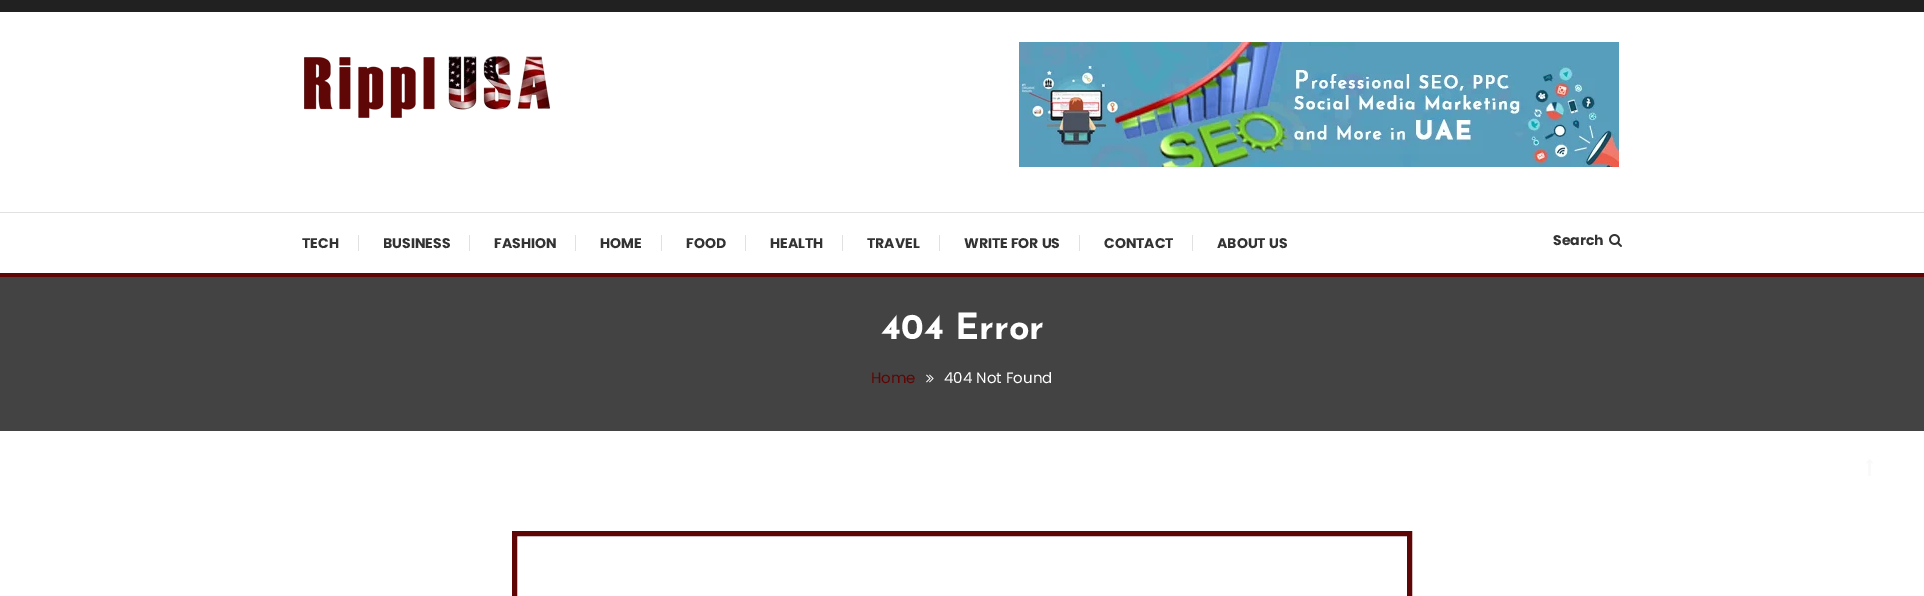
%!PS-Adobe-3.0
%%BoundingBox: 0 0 1924 596
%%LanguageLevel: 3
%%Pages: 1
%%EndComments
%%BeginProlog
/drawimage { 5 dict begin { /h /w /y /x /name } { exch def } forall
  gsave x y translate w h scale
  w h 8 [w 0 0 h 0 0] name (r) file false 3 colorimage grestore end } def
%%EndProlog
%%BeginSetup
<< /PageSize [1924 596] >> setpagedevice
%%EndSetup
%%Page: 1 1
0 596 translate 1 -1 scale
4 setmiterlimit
1 setgray
0 0 1924 596 rectfill
0.129 setgray
0 0 1924 12 rectfill
(images/1.raw) 304 56 246 62 drawimage
(images/2.raw) 1019 42 600 125 drawimage
0.882 setgray
0 212 1924 1 rectfill
358 235 1 16 rectfill
469 235 1 16 rectfill
575 235 1 16 rectfill
661 235 1 16 rectfill
745 235 1 16 rectfill
842 235 1 16 rectfill
939 235 1 16 rectfill
1079 235 1 16 rectfill
1192 235 1 16 rectfill
(images/3.raw) 1609 234 13 13 drawimage
0.263 setgray
0 277 1924 154 rectfill
0.369 0.024 0.024 setrgbcolor
0 273 1924 4 rectfill
(images/4.raw) 926 374 8 9 drawimage
(images/5.raw) 1866 459 7 17 drawimage
5 setlinewidth
514.5 533.5 895 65 rectstroke
/Poppins-Bold [14 0 0 -14 0 0] selectfont
0.2 setgray
302 248 moveto (TECH) show
383 248 moveto (BUSINESS) show
494 248 moveto (FASHION) show
600 248 moveto (HOME) show
686 248 moveto (FOOD) show
770 248 moveto (HEALTH) show
867 248 moveto (TRAVEL) show
964 248 moveto (WRITE FOR US) show
1104 248 moveto (CONTACT) show
1217 248 moveto (ABOUT US) show
1553 245 moveto (Search) show
/JosefinSans-Bold [36 0 0 -36 0 0] selectfont
1 setgray
881 339 moveto (404 Error) show
/Poppins-Regular [15 0 0 -15 0 0] selectfont
0.369 0.024 0.024 setrgbcolor
871 383 moveto (Home) show
1 setgray
944 383 moveto (404 Not Found) show
showpage
%%EOF
